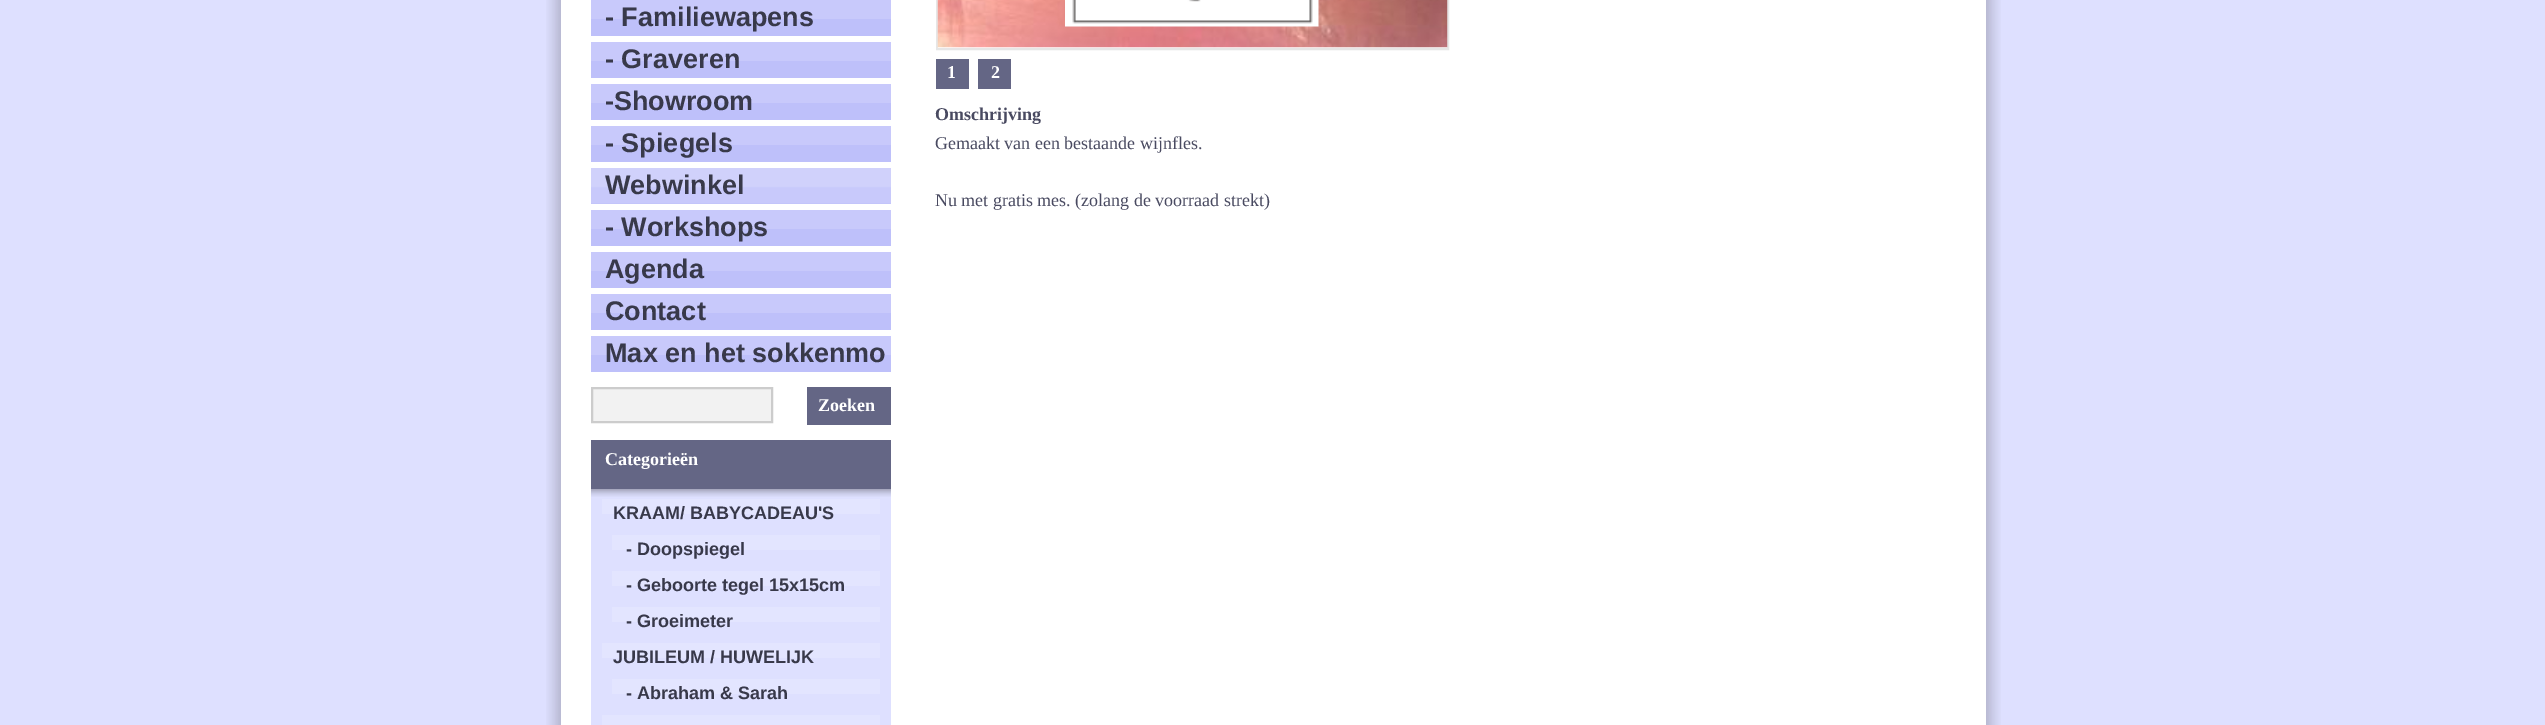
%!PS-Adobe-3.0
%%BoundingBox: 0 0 2545 725
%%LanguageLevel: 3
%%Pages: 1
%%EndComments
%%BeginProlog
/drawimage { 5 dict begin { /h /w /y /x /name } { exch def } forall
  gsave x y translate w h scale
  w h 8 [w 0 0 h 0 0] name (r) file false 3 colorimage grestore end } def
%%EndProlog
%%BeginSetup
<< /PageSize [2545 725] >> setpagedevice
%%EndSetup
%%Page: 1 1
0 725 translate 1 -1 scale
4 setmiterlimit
0.871 0.878 1 setrgbcolor
0 0 2545 725 rectfill
(images/1.raw) 546 0 1455 725 drawimage
1 setgray
561 0 1425 725 rectfill
0.745 0.753 0.98 setrgbcolor
591 19 300 17 rectfill
0.784 0.788 0.984 setrgbcolor
591 0 300 19 rectfill
0.745 0.753 0.98 setrgbcolor
591 61 300 17 rectfill
0.784 0.788 0.984 setrgbcolor
591 42 300 19 rectfill
0.745 0.753 0.98 setrgbcolor
591 103 300 17 rectfill
0.784 0.788 0.984 setrgbcolor
591 84 300 19 rectfill
0.745 0.753 0.98 setrgbcolor
591 145 300 17 rectfill
0.784 0.788 0.984 setrgbcolor
591 126 300 19 rectfill
0.745 0.753 0.98 setrgbcolor
591 168 300 36 rectfill
(images/2.raw) 591 168 300 36 drawimage
591 229 300 17 rectfill
0.784 0.788 0.984 setrgbcolor
591 210 300 19 rectfill
0.745 0.753 0.98 setrgbcolor
591 271 300 17 rectfill
0.784 0.788 0.984 setrgbcolor
591 252 300 19 rectfill
0.745 0.753 0.98 setrgbcolor
591 313 300 17 rectfill
0.784 0.788 0.984 setrgbcolor
591 294 300 19 rectfill
0.745 0.753 0.98 setrgbcolor
591 355 300 17 rectfill
0.784 0.788 0.984 setrgbcolor
591 336 300 19 rectfill
0.949 setgray
newpath 592 388 moveto 772 388 lineto 772 422 lineto 592 422 lineto closepath gsave fill grestore
0.8 setgray
2 setlinewidth
stroke
0.392 0.4 0.522 setrgbcolor
807 387 84 38 rectfill
0.871 0.878 1 setrgbcolor
591 489 300 236 rectfill
(images/3.raw) 591 489 300 8 drawimage
0.392 0.4 0.522 setrgbcolor
591 440 300 49 rectfill
0.89 0.898 1 setrgbcolor
602 499 278 15 rectfill
612 535 268 15 rectfill
612 571 268 15 rectfill
612 607 268 15 rectfill
602 643 278 15 rectfill
612 679 268 15 rectfill
602 715 278 10 rectfill
0.902 setgray
937 -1 511 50 rectstroke
(images/4.raw) 937 0 511 48 drawimage
(images/5.raw) 1065 0 254 27 drawimage
0.392 0.4 0.522 setrgbcolor
936 59 33 30 rectfill
978 59 33 30 rectfill
/LiberationSans-Bold [27 0 0 -27 0 0] selectfont
0.22 0.224 0.29 setrgbcolor
605 26 moveto (- Familiewapens) show
605 68 moveto (- Graveren) show
605 110 moveto (-Showroom) show
605 152 moveto (- Spiegels) show
605 194 moveto (Webwinkel) show
605 236 moveto (- Workshops) show
605 278 moveto (Agenda) show
605 320 moveto (Contact) show
605 362 moveto (Max en het sokkenmo) show
/LiberationSerif-Bold [18 0 0 -18 0 0] selectfont
1 setgray
818 411 moveto (Zoeken) show
605 465 moveto (Categorieën) show
/LiberationSans-Bold [18 0 0 -18 0 0] selectfont
0.22 0.224 0.29 setrgbcolor
613 519 moveto (KRAAM/ BABYCADEAU'S) show
626 555 moveto (- Doopspiegel) show
626 591 moveto (- Geboorte tegel 15x15cm) show
626 627 moveto (- Groeimeter) show
613 663 moveto (JUBILEUM / HUWELIJK) show
626 699 moveto (- Abraham & Sarah) show
/LiberationSerif-Bold [18 0 0 -18 0 0] selectfont
1 setgray
947 78 moveto (1) show
991 78 moveto (2) show
0.286 0.29 0.38 setrgbcolor
935 120 moveto (Omschrijving) show
/LiberationSerif-Regular [18 0 0 -18 0 0] selectfont
935 149 moveto (Gemaakt van een bestaande wijnfles.) show
935 206 moveto (Nu met gratis mes. \(zolang de voorraad strekt\)) show
showpage
%%EOF
